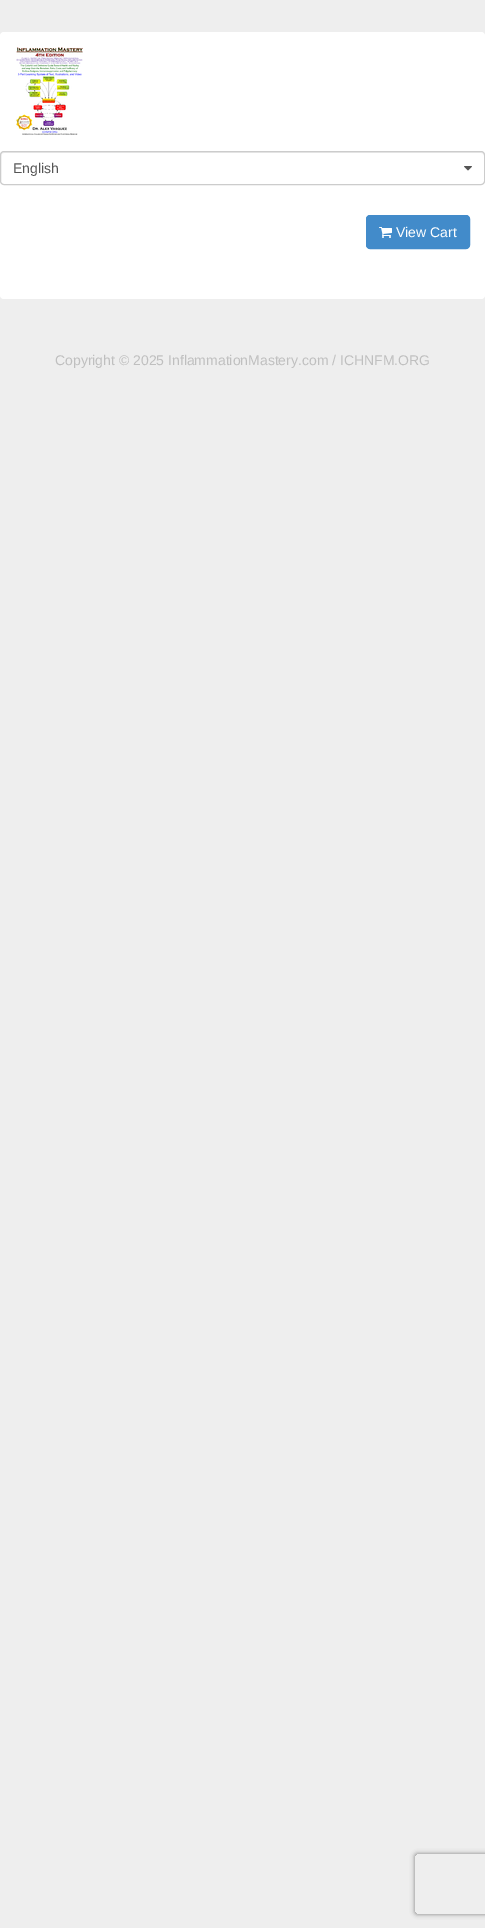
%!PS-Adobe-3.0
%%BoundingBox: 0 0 485 1928
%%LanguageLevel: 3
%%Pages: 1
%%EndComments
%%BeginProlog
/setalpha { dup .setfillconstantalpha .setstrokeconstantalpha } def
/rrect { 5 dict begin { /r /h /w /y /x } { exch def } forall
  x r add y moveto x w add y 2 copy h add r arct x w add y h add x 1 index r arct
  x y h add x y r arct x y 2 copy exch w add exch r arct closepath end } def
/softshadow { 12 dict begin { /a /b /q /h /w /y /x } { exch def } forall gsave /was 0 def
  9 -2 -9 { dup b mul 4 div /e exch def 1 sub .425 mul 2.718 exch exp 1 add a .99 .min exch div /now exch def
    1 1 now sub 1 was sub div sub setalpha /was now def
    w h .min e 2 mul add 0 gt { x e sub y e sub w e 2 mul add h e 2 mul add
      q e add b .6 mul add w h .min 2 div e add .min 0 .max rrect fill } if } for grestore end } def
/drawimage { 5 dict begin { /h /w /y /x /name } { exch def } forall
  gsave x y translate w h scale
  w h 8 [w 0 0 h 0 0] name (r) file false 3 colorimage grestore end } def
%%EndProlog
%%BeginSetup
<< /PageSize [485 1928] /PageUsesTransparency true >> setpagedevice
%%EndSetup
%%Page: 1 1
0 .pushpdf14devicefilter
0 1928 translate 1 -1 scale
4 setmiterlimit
0.933 setgray
0 0 485 1928 rectfill
1 setgray
0 32 485 267 4 rrect fill
(images/1.raw) 16 47 67 88 drawimage
0.925 setgray
newpath 4 153 moveto 481 153 lineto 483 153 484 154 484 156 curveto 484 155 lineto 484 153 483 152 481 152 curveto 4 152 lineto 2 152 1 153 1 155 curveto 1 156 lineto 1 154 2 153 4 153 curveto closepath fill
0.8 setgray
0.5 151.5 484 33 3.5 rrect stroke
(images/2.raw) 464 166 8 5 drawimage
0.259 0.545 0.792 setrgbcolor
366.5 215.5 103 33 3.5 rrect gsave fill grestore
stroke
(images/3.raw) 379 227 13 11 drawimage
gsave
newpath 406 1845 moveto 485 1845 lineto 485 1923 lineto 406 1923 lineto closepath 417 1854 moveto 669 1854 lineto 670 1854 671 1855 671 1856 curveto 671 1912 lineto 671 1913 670 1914 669 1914 curveto 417 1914 lineto 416 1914 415 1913 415 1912 curveto 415 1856 lineto 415 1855 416 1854 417 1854 curveto closepath eoclip newpath
0.502 setgray
415 1854 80 60 2 2.5 1 softshadow
grestore
/LiberationSans-Regular [14 0 0 -14 0 0] selectfont
0.333 setgray
13 173 moveto (English) show
1 setgray
396 237 moveto (View Cart) show
0.749 setgray
55 365 moveto (Copyright © 2025 InflammationMastery.com / ICHNFM.ORG) show
.poppdf14devicefilter showpage
%%EOF
